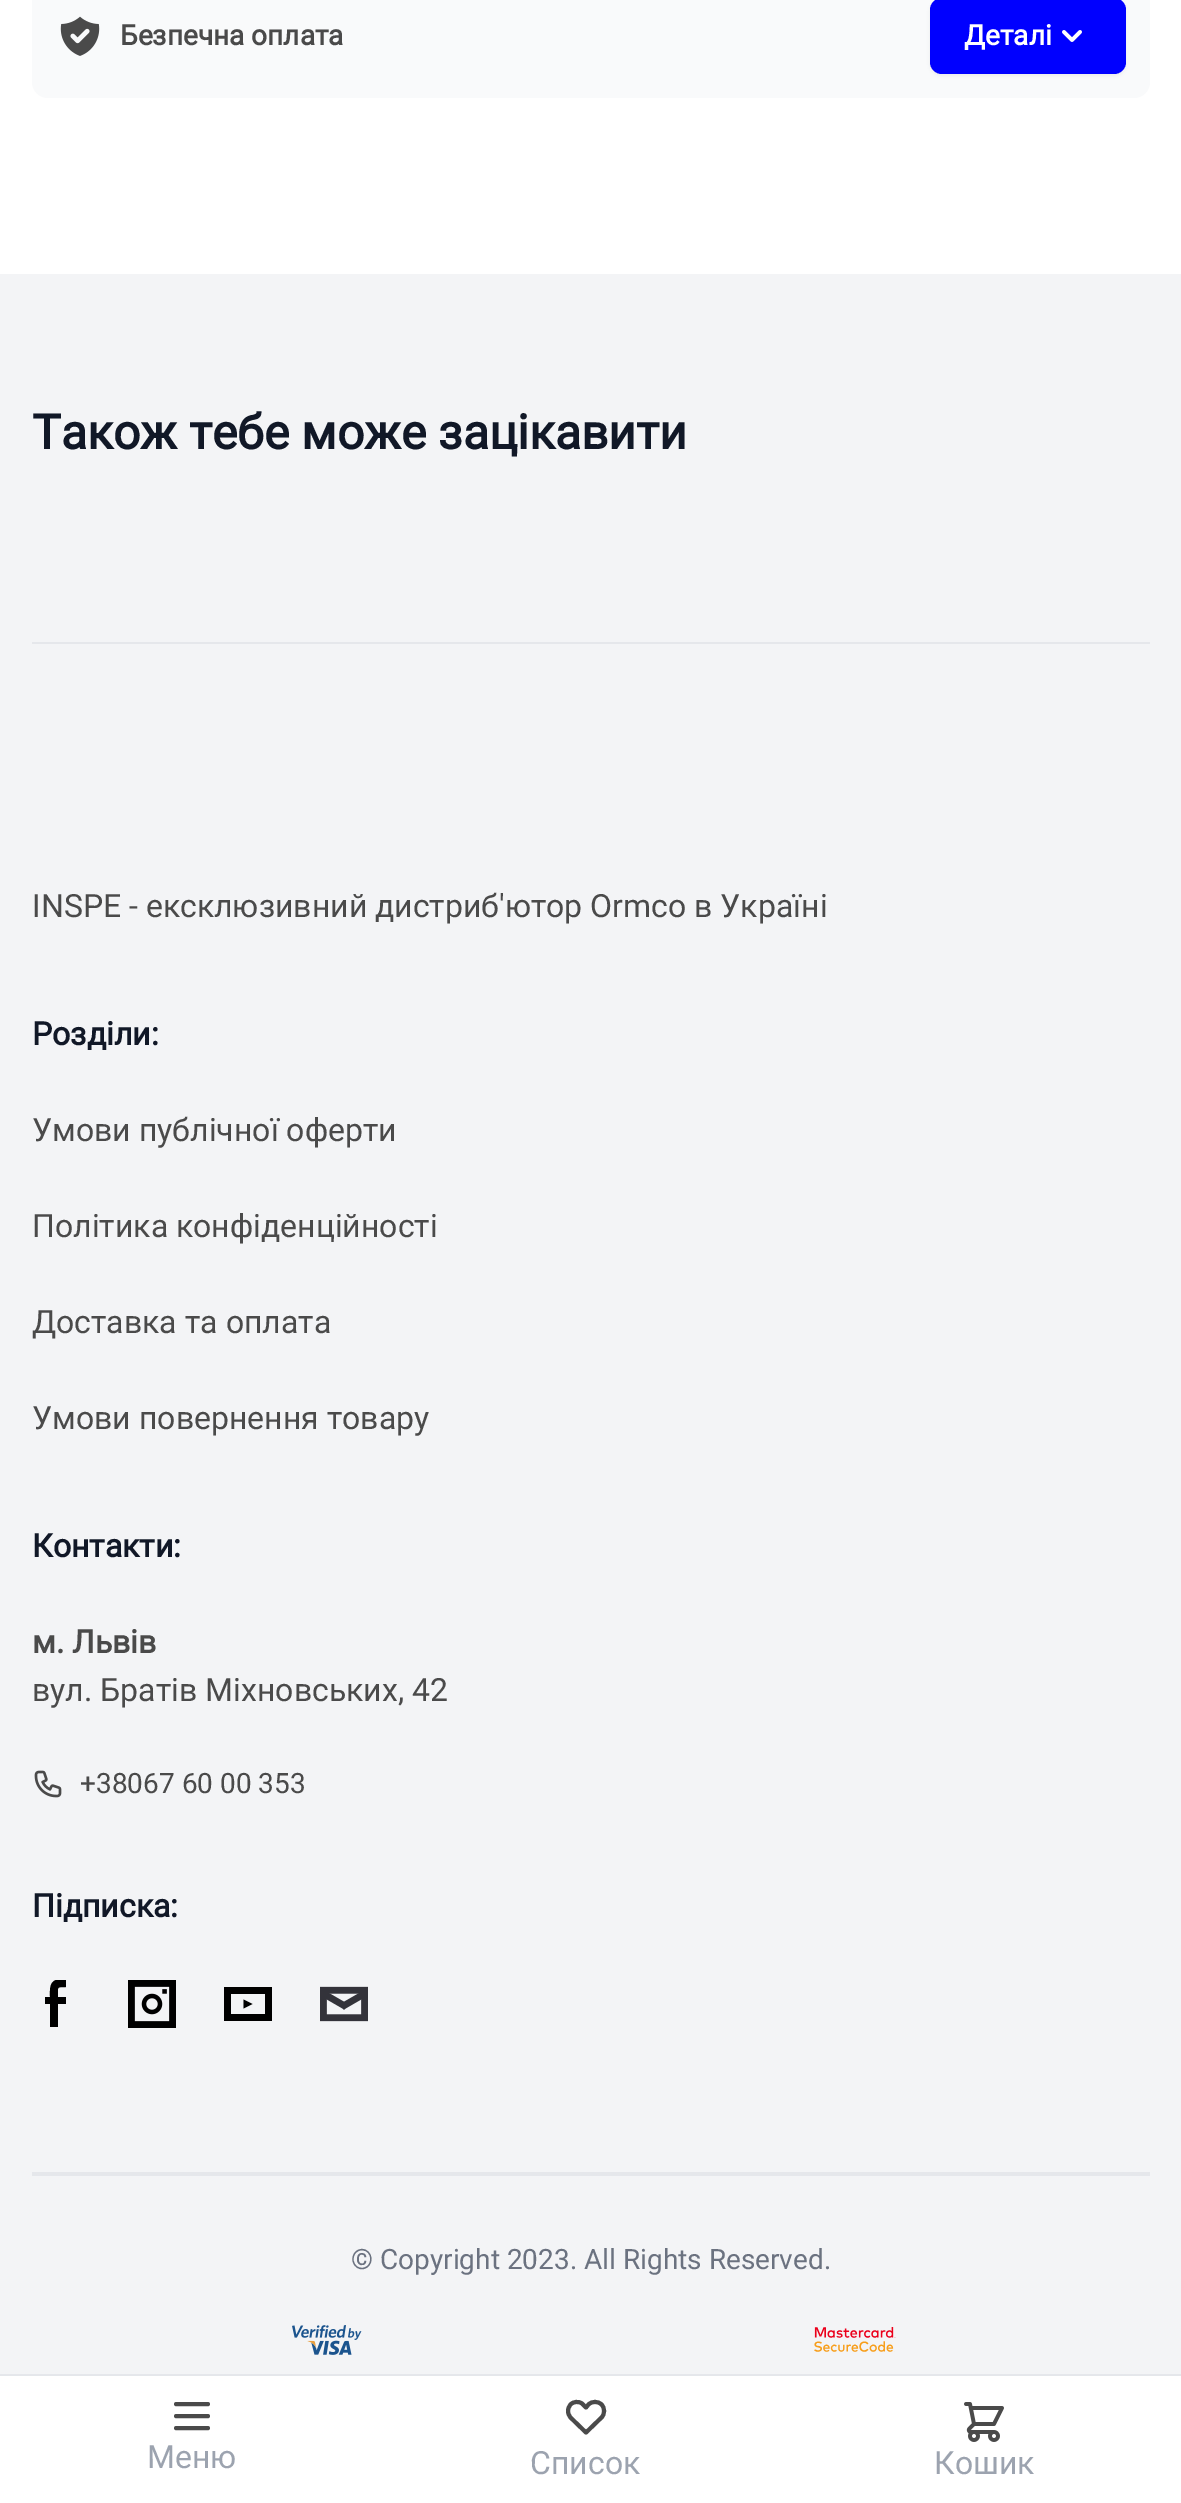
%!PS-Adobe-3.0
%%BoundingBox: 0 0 1181 2503
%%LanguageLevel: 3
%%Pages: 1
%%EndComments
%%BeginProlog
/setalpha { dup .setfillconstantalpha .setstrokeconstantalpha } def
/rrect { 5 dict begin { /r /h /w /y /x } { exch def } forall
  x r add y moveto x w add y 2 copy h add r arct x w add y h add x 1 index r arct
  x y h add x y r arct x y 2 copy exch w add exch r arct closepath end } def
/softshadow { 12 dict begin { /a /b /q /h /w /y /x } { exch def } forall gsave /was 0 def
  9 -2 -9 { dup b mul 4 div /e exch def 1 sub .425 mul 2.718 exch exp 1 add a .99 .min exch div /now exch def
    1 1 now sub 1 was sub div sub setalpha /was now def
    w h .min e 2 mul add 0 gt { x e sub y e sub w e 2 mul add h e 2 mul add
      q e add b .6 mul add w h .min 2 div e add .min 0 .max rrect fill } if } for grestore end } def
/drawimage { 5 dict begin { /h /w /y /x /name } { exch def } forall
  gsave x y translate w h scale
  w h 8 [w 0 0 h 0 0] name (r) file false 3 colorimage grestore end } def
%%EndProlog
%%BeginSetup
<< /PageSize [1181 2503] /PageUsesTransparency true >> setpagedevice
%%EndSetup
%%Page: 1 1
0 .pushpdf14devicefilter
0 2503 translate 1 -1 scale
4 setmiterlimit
1 setgray
0 0 1181 2503 rectfill
0.976 0.98 0.984 setrgbcolor
32 -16 1118 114 16 rrect fill
(images/1.raw) 60 16 40 40 drawimage
0 setgray
930 0 196 76 12 2 0.05 softshadow
0 0 1 setrgbcolor
930 -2 196 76 12 rrect fill
(images/2.raw) 1062 30 20 12 drawimage
0.953 0.957 0.965 setrgbcolor
0 274 1181 2100 rectfill
0.898 0.906 0.922 setrgbcolor
32 642 1118 2 rectfill
32 2172 1118 4 rectfill
(images/3.raw) 34 1770 28 28 drawimage
0 setgray
newpath 50 2027 moveto 58 2027 lineto 58 2004 lineto 66 2004 lineto 66 1997 lineto 58 1997 lineto 58 1987 56 1987 66 1987 curveto 66 1980 lineto 56 1980 lineto 49 1982 50 1991 50 1997 curveto 45 1997 lineto 45 2004 lineto 50 2004 lineto closepath fill
(images/4.raw) 128 1980 48 48 drawimage
newpath 243.5 2008.5 moveto 252.5 2004 lineto 243.5 1999.5 lineto closepath fill
newpath 224 1987 moveto 272 1987 lineto 272 2021 lineto 224 2021 lineto closepath 231 1994 moveto 265 1994 lineto 265 2014 lineto 231 2014 lineto closepath eofill
(images/5.raw) 320 1986 48 36 drawimage
(images/6.raw) 292 2325 70 30 drawimage
(images/7.raw) 814 2327 82 25 drawimage
0.898 0.906 0.922 setrgbcolor
0 2374 1181 2 rectfill
0.29 setgray
4 setlinewidth
1 setlinecap
1 setlinejoin
newpath 176 2404 moveto 208 2404 lineto 176 2416 moveto 208 2416 lineto 176 2428 moveto 208 2428 lineto stroke
newpath 570.5 2404.5 moveto 569 2406.5 568 2408.5 568 2411 curveto 568 2413.5 569 2415.5 570.5 2417.5 curveto 586 2432.5 lineto 601.5 2417.5 lineto 605 2414 605 2408 601.5 2404.5 curveto 598 2401 592 2401 588.5 2404.5 curveto 586 2407.5 lineto 582 2403.5 lineto 578.5 2401 573.5 2401.5 570.5 2404.5 curveto closepath stroke
(images/8.raw) 964 2402 40 40 drawimage
/Roboto-Bold [28 0 0 -28 0 0] selectfont
120 45 moveto (Безпечна оплата) show
1 setgray
964 45 moveto (Деталі) show
/Roboto-Bold [48 0 0 -48 0 0] selectfont
0.067 0.094 0.153 setrgbcolor
32 449 moveto (Також тебе може зацікавити) show
/Roboto-Regular [32 0 0 -32 0 0] selectfont
0.29 setgray
32 917 moveto (INSPE - ексклюзивний дистриб'ютор Ormco в Україні) show
/Roboto-Bold [32 0 0 -32 0 0] selectfont
0.067 0.094 0.153 setrgbcolor
32 1045 moveto (Розділи:) show
/Roboto-Regular [32 0 0 -32 0 0] selectfont
0.29 setgray
32 1141 moveto (Умови публічної оферти) show
32 1237 moveto (Політика конфіденційності) show
32 1333 moveto (Доставка та оплата) show
32 1429 moveto (Умови повернення товару) show
/Roboto-Bold [32 0 0 -32 0 0] selectfont
0.067 0.094 0.153 setrgbcolor
32 1557 moveto (Контакти:) show
0.29 setgray
32 1653 moveto (м. Львів) show
/Roboto-Regular [32 0 0 -32 0 0] selectfont
32 1701 moveto (вул. Братів Міхновських, 42) show
/Roboto-Regular [28 0 0 -28 0 0] selectfont
80 1793 moveto (+38067 60 00 353) show
/Roboto-Bold [32 0 0 -32 0 0] selectfont
0.067 0.094 0.153 setrgbcolor
32 1917 moveto (Підписка:) show
/Roboto-Regular [28 0 0 -28 0 0] selectfont
0.42 0.447 0.502 setrgbcolor
351 2269 moveto (© Copyright 2023. All Rights Reserved.) show
/Roboto-Regular [32 0 0 -32 0 0] selectfont
0.612 0.639 0.686 setrgbcolor
147 2468 moveto (Меню) show
530 2474 moveto (Список) show
934 2474 moveto (Кошик) show
.poppdf14devicefilter showpage
%%EOF
